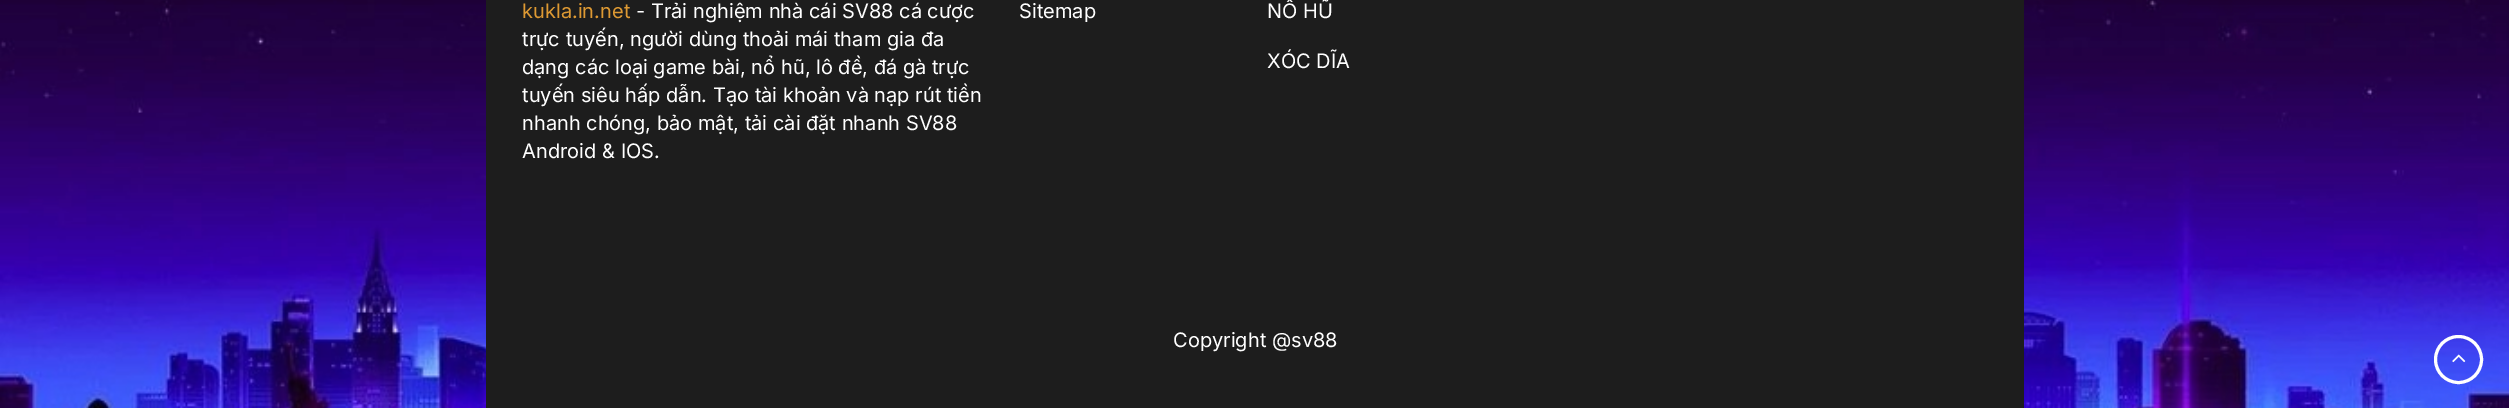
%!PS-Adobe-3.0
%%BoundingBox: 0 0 2509 408
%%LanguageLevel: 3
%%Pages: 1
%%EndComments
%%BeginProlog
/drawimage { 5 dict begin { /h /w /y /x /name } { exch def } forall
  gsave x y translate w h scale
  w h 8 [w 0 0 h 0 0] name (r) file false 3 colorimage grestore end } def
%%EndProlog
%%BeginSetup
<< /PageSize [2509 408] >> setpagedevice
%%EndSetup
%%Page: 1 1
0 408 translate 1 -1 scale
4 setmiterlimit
1 setgray
0 0 2509 408 rectfill
(images/1.raw) 0 0 2509 408 drawimage
0.114 setgray
486 0 1538 408 rectfill
1 setgray
3 setlinewidth
newpath 2458.5 359.5 23 0 360 arc closepath stroke
(images/2.raw) 2452 354 14 9 drawimage
/Inter-Regular [20 0 0 -20 0 0] selectfont
0.867 0.6 0.2 setrgbcolor
522 18 moveto (kukla.in.net) show
1 setgray
636 18 moveto (- Trải nghiệm nhà cái SV88 cá cược) show
522 46 moveto (trực tuyến, người dùng thoải mái tham gia đa) show
522 74 moveto (dạng các loại game bài, nổ hũ, lô đề, đá gà trực) show
522 102 moveto (tuyến siêu hấp dẫn. Tạo tài khoản và nạp rút tiền) show
522 130 moveto (nhanh chóng, bảo mật, tải cài đặt nhanh SV88) show
522 158 moveto (Android & IOS.) show
1019 18 moveto (Sitemap) show
1267 18 moveto (NỔ HŨ) show
1267 68 moveto (XÓC DĨA) show
1173 347 moveto (Copyright @sv88) show
showpage
%%EOF
